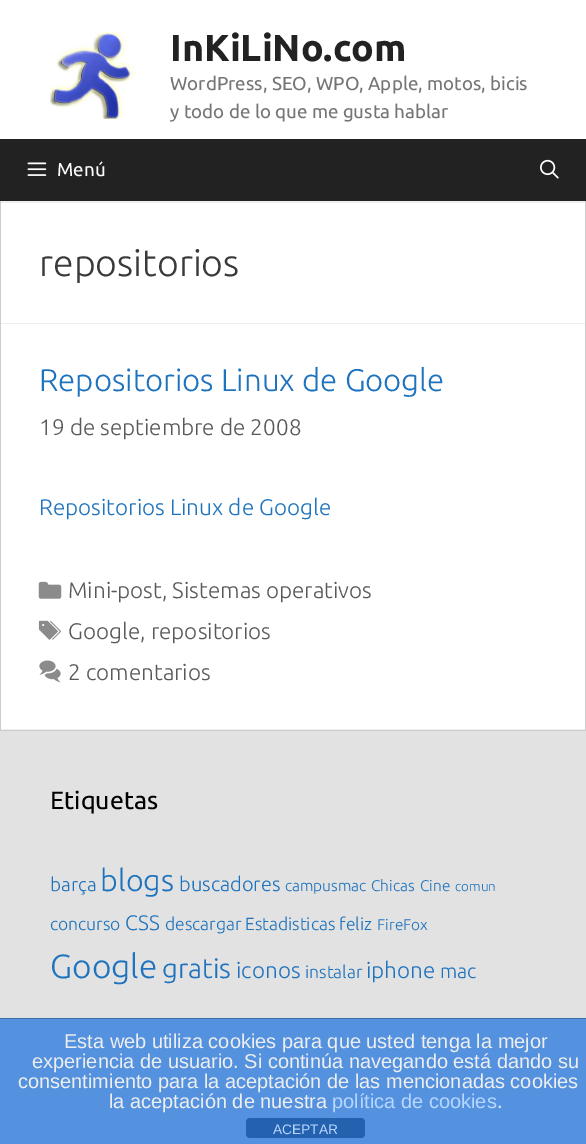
%!PS-Adobe-3.0
%%BoundingBox: 0 0 586 1144
%%LanguageLevel: 3
%%Pages: 1
%%EndComments
%%BeginProlog
/rrect { 5 dict begin { /r /h /w /y /x } { exch def } forall
  x r add y moveto x w add y 2 copy h add r arct x w add y h add x 1 index r arct
  x y h add x y r arct x y 2 copy exch w add exch r arct closepath end } def
/drawimage { 5 dict begin { /h /w /y /x /name } { exch def } forall
  gsave x y translate w h scale
  w h 8 [w 0 0 h 0 0] name (r) file false 3 colorimage grestore end } def
%%EndProlog
%%BeginSetup
<< /PageSize [586 1144] >> setpagedevice
%%EndSetup
%%Page: 1 1
0 1144 translate 1 -1 scale
4 setmiterlimit
0.937 setgray
0 0 586 1144 rectfill
1 setgray
0 0 586 139 rectfill
(images/1.raw) 50 32 85 87 drawimage
0.133 setgray
0 139 586 62 rectfill
(images/2.raw) 27 162 20 14 drawimage
(images/3.raw) 540 159 19 20 drawimage
0.8 setgray
585 201 1 529 rectfill
0 201 1 529 rectfill
1 setgray
1 203 584 120 rectfill
1 324 584 405 rectfill
(images/4.raw) 38 581 24 18 drawimage
(images/5.raw) 38 620 23 20 drawimage
(images/6.raw) 39 660 22 23 drawimage
0.8 setgray
0 730 586 1 rectfill
0.886 setgray
0 731 586 287 rectfill
0.329 0.573 0.878 setrgbcolor
0 1019 586 125 rectfill
0.247 0.427 0.655 setrgbcolor
0 1018 586 1 rectfill
0.141 0.384 0.69 setrgbcolor
246 1118 119 20 4 rrect fill
/Ubuntu-Bold [37.5 0 0 -37.5 0 0] selectfont
0.133 setgray
170 61 moveto (InKiLiNo.com) show
/Ubuntu-Regular [18.75 0 0 -18.75 0 0] selectfont
0.459 setgray
170 90 moveto (WordPress, SEO, WPO, Apple, motos, bicis) show
170 118 moveto (y todo de lo que me gusta hablar) show
1 setgray
57 176 moveto (Menú) show
/Ubuntu-Light [37.5 0 0 -37.5 0 0] selectfont
0.227 setgray
39 276 moveto (repositorios) show
/Ubuntu-Light [31.25 0 0 -31.25 0 0] selectfont
0.118 0.451 0.745 setrgbcolor
39 391 moveto (Repositorios Linux de Google) show
/Ubuntu-Light [22.5 0 0 -22.5 0 0] selectfont
0.349 setgray
39 435 moveto (19 de septiembre de 2008) show
0.118 0.451 0.745 setrgbcolor
39 515 moveto (Repositorios Linux de Google) show
0.349 setgray
68 598 moveto (Mini-post, Sistemas operativos) show
68 639 moveto (Google, repositorios) show
68 680 moveto (2 comentarios) show
/Ubuntu-Regular [25 0 0 -25 0 0] selectfont
0 setgray
50 809 moveto (Etiquetas) show
/Ubuntu-Light [19 0 0 -19 0 0] selectfont
0.118 0.451 0.745 setrgbcolor
50 891 moveto (barça) show
/Ubuntu-Light [30.5 0 0 -30.5 0 0] selectfont
100 891 moveto (blogs) show
/Ubuntu-Light [20 0 0 -20 0 0] selectfont
179 891 moveto (buscadores) show
/Ubuntu-Light [15.5 0 0 -15.5 0 0] selectfont
285 891 moveto (campusmac) show
371 891 moveto (Chicas) show
420 891 moveto (Cine) show
/Ubuntu-Light [13.5 0 0 -13.5 0 0] selectfont
455 891 moveto (comun) show
/Ubuntu-Light [17.5 0 0 -17.5 0 0] selectfont
50 930 moveto (concurso) show
/Ubuntu-Light [21 0 0 -21 0 0] selectfont
125 930 moveto (CSS) show
/Ubuntu-Light [17.5 0 0 -17.5 0 0] selectfont
165 930 moveto (descargar) show
245 930 moveto (Estadisticas) show
339 930 moveto (feliz) show
/Ubuntu-Light [15.5 0 0 -15.5 0 0] selectfont
377 930 moveto (FireFox) show
/Ubuntu-Light [33.5 0 0 -33.5 0 0] selectfont
50 978 moveto (Google) show
/Ubuntu-Light [27.5 0 0 -27.5 0 0] selectfont
162 978 moveto (gratis) show
/Ubuntu-Light [22.5 0 0 -22.5 0 0] selectfont
236 978 moveto (iconos) show
/Ubuntu-Light [17.5 0 0 -17.5 0 0] selectfont
305 978 moveto (instalar) show
/Ubuntu-Light [22.5 0 0 -22.5 0 0] selectfont
366 978 moveto (iphone) show
/Ubuntu-Light [20 0 0 -20 0 0] selectfont
440 978 moveto (mac) show
/LiberationSans-Regular [20 0 0 -20 0 0] selectfont
0.933 setgray
64 1048 moveto (Esta web utiliza cookies para que usted tenga la mejor) show
32 1068 moveto (experiencia de usuario. Si continúa navegando está dando su) show
18 1088 moveto (consentimiento para la aceptación de las mencionadas cookies) show
109 1108 moveto (la aceptación de nuestra) show
0.718 0.843 1 setrgbcolor
332 1108 moveto (política de cookies) show
0.933 setgray
497 1108 moveto (.) show
/LiberationSans-Regular [13.75 0 0 -13.75 0 0] selectfont
0.718 0.843 1 setrgbcolor
273 1134 moveto (ACEPTAR) show
showpage
%%EOF
